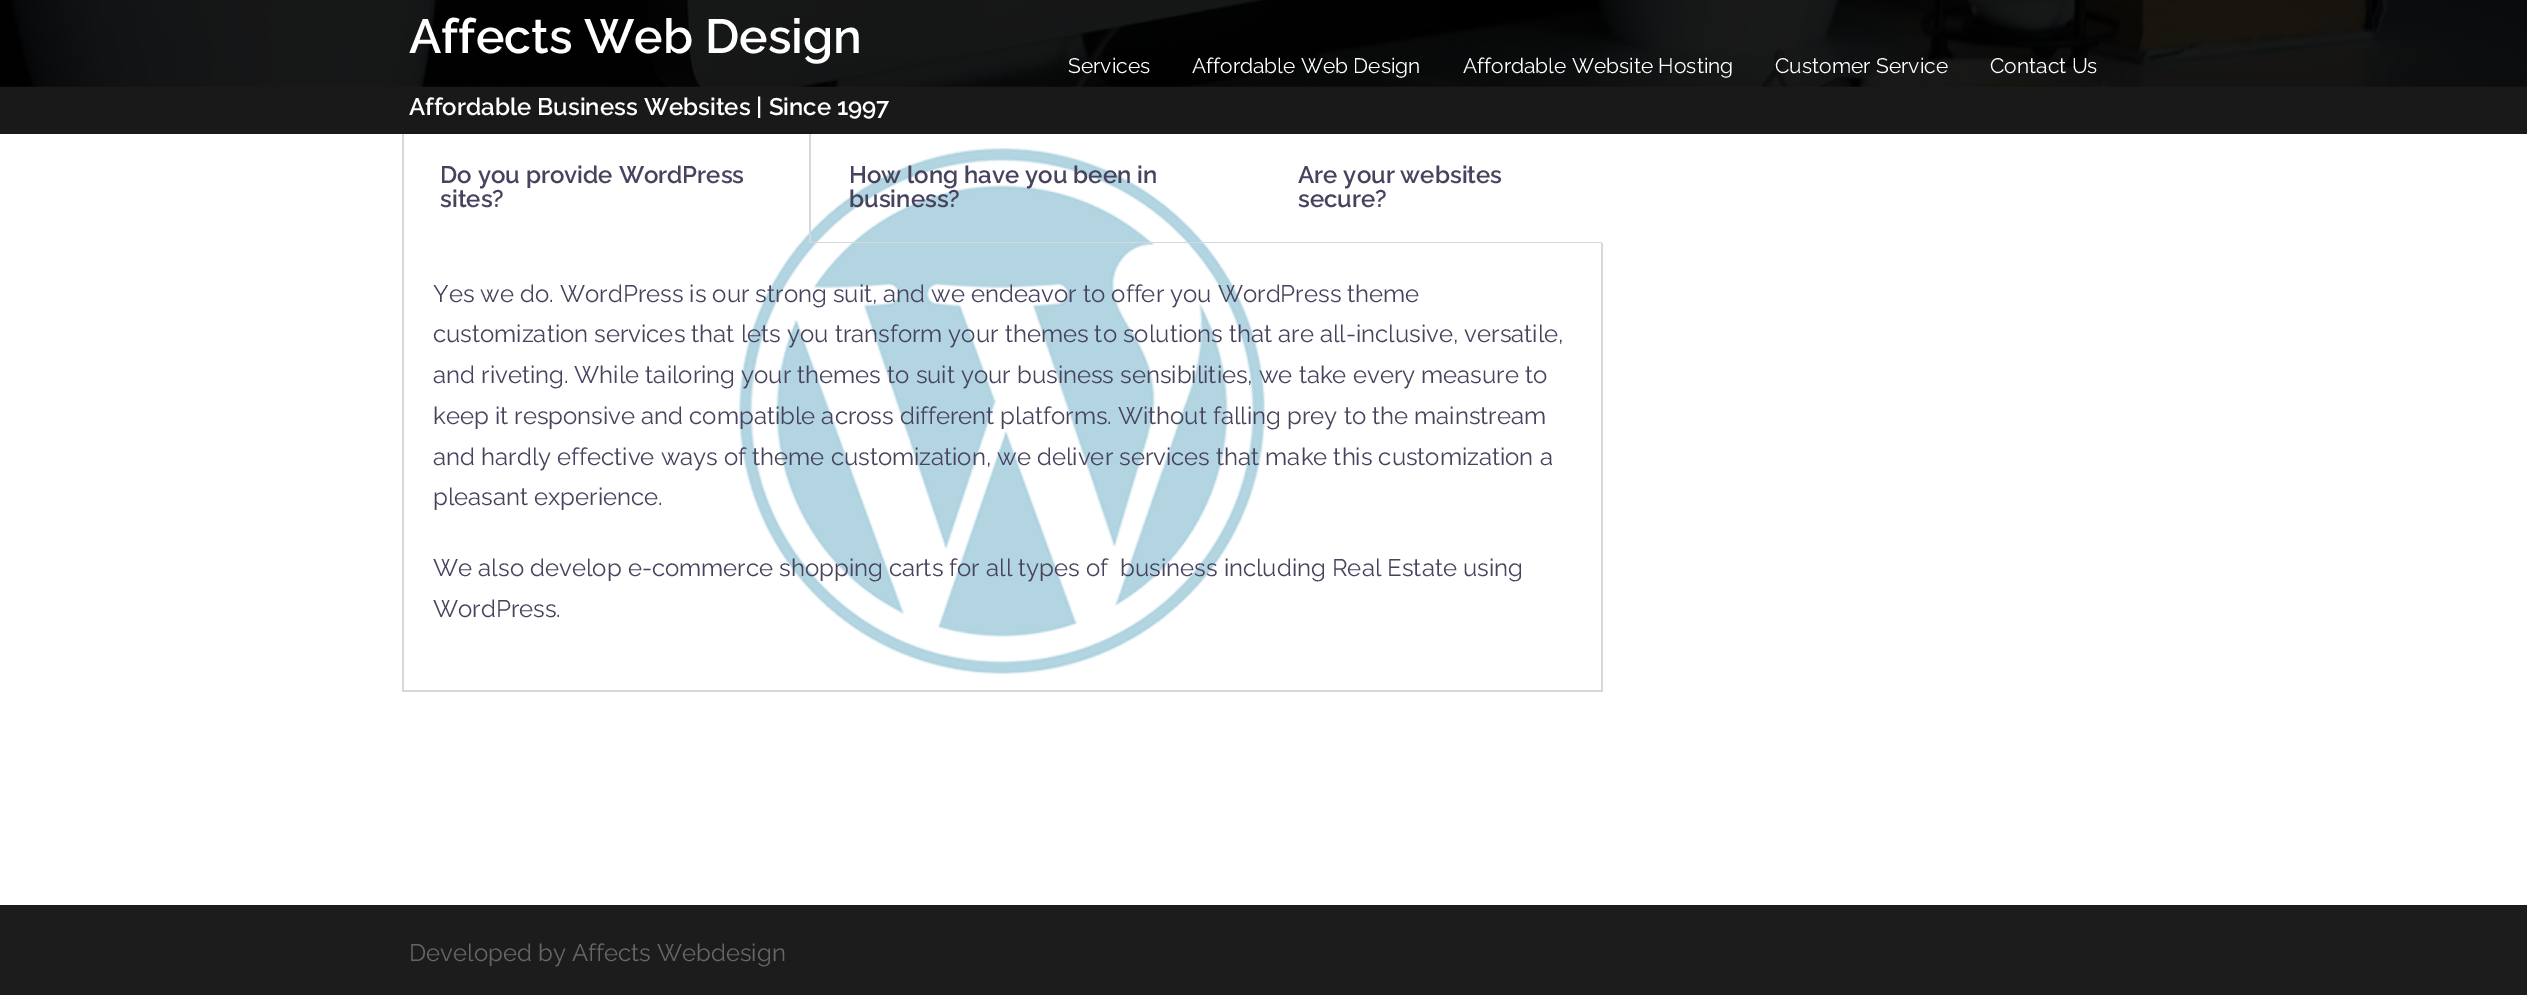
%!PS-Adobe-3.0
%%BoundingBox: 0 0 2527 995
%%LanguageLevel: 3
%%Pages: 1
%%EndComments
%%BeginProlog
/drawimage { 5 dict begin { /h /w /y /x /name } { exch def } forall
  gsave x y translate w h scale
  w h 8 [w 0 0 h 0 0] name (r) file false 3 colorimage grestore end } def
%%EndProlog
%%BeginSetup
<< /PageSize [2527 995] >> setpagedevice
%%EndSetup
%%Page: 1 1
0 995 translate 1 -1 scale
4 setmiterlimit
1 setgray
0 0 2527 995 rectfill
0.098 setgray
0 86 2527 48 rectfill
(images/1.raw) 0 0 2527 87 drawimage
(images/2.raw) 739 148 526 526 drawimage
0.082 0.086 0.086 setrgbcolor
402 132 408 2 rectfill
0.835 0.847 0.863 setrgbcolor
809 132 2 111 rectfill
0.082 0.086 0.086 setrgbcolor
809 132 2 2 rectfill
0.835 0.847 0.863 setrgbcolor
402 132 2 111 rectfill
0.082 0.086 0.086 setrgbcolor
402 132 2 2 rectfill
0.835 0.847 0.863 setrgbcolor
809 242 793 1 rectfill
1601 243 2 449 rectfill
402 690 1200 2 rectfill
402 243 2 449 rectfill
0.11 setgray
0 905 2527 90 rectfill
/Raleway-SemiBold [48 0 0 -48 0 0] selectfont
1 setgray
409 53 moveto (Affects Web Design) show
/Raleway-SemiBold [24 0 0 -24 0 0] selectfont
409 115 moveto (Affordable Business Websites | Since 1997) show
/Raleway-Regular [21 0 0 -21 0 0] selectfont
1068 73 moveto (Services) show
1192 73 moveto (Affordable Web Design) show
1463 73 moveto (Affordable Website Hosting) show
1775 73 moveto (Customer Service) show
1990 73 moveto (Contact Us) show
/Raleway-SemiBold [24 0 0 -24 0 0] selectfont
0.278 0.259 0.365 setrgbcolor
440 183 moveto (Do you provide WordPress) show
440 207 moveto (sites?) show
849 183 moveto (How long have you been in) show
849 207 moveto (business?) show
1298 183 moveto (Are your websites) show
1298 207 moveto (secure?) show
/Raleway-Regular [24 0 0 -24 0 0] selectfont
433 302 moveto (Yes we do. WordPress is our strong suit, and we endeavor to offer you WordPress theme) show
433 342 moveto (customization services that lets you transform your themes to solutions that are all-inclusive, versatile,) show
433 383 moveto (and riveting. While tailoring your themes to suit your business sensibilities, we take every measure to) show
433 424 moveto (keep it responsive and compatible across different platforms. Without falling prey to the mainstream) show
433 465 moveto (and hardly effective ways of theme customization, we deliver services that make this customization a) show
433 505 moveto (pleasant experience.) show
433 576 moveto (We also develop e-commerce shopping carts for all types of  business including Real Estate using) show
433 617 moveto (WordPress.) show
0.4 setgray
409 961 moveto (Developed by Affects Webdesign) show
showpage
%%EOF
